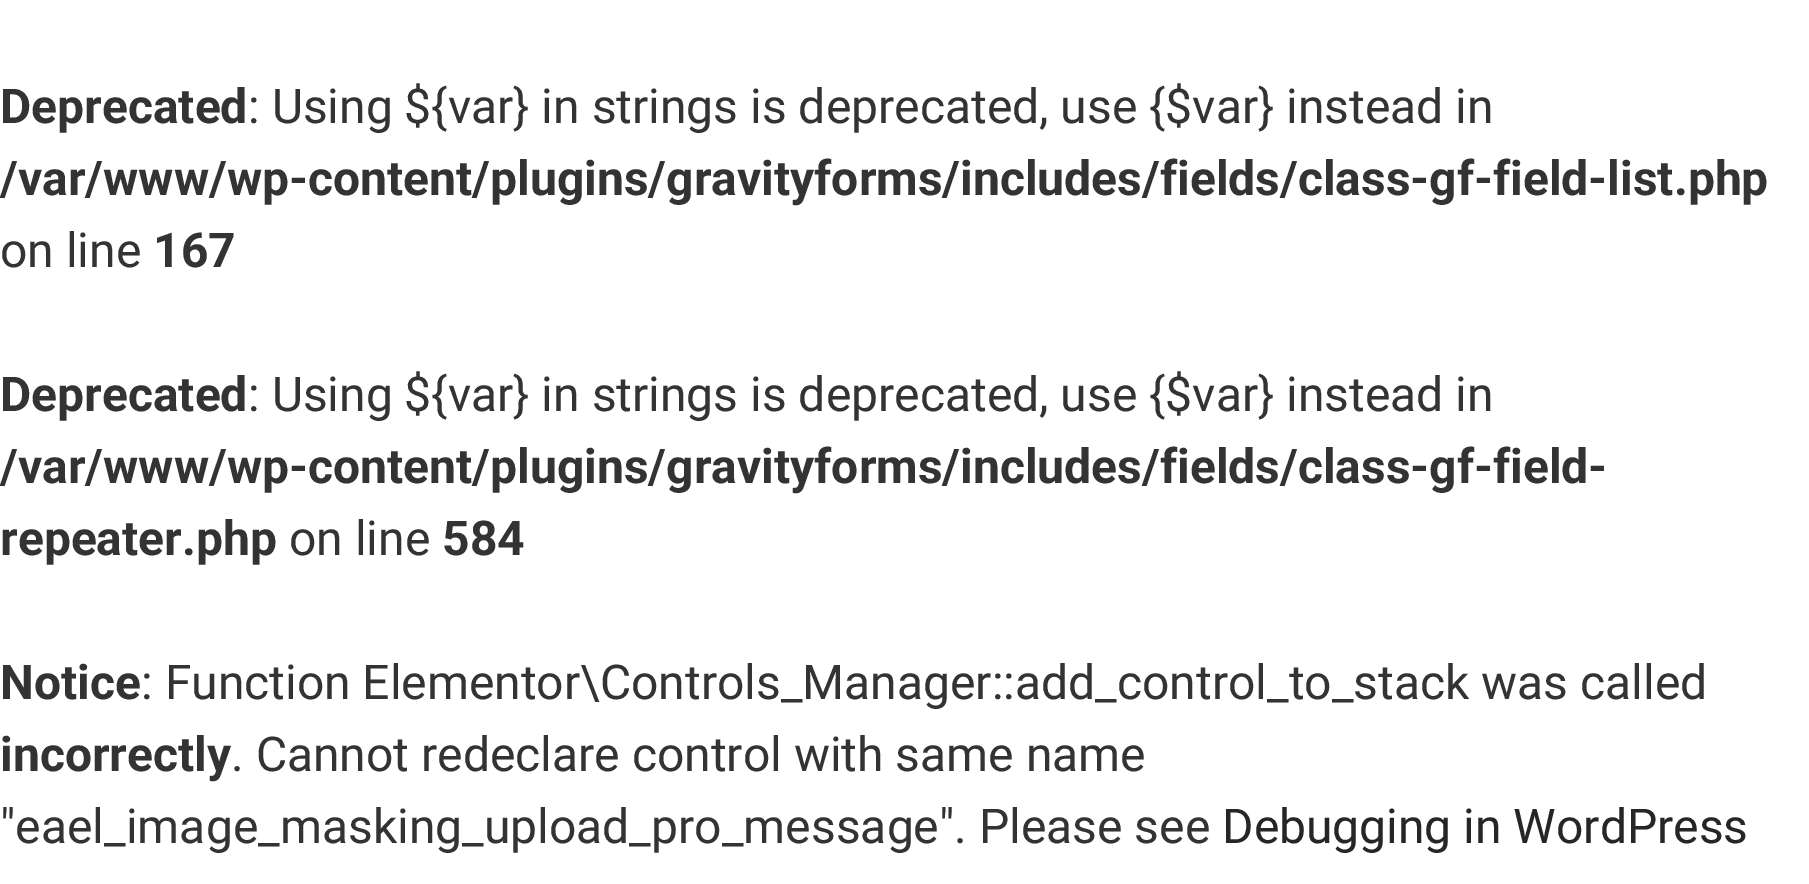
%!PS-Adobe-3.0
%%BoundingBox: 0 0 1809 884
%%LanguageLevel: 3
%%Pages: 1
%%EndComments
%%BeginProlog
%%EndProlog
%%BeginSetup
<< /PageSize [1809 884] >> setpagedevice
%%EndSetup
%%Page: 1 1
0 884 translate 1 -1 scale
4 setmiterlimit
1 setgray
0 0 1809 884 rectfill
/Roboto-Bold [48 0 0 -48 0 0] selectfont
0.2 setgray
0 123 moveto (Deprecated) show
/Roboto-Regular [48 0 0 -48 0 0] selectfont
248 123 moveto (: Using ${var} in strings is deprecated, use {$var} instead in) show
/Roboto-Bold [48 0 0 -48 0 0] selectfont
0 195 moveto (/var/www/wp-content/plugins/gravityforms/includes/fields/class-gf-field-list.php) show
/Roboto-Regular [48 0 0 -48 0 0] selectfont
0 267 moveto (on line) show
/Roboto-Bold [48 0 0 -48 0 0] selectfont
153 267 moveto (167) show
0 411 moveto (Deprecated) show
/Roboto-Regular [48 0 0 -48 0 0] selectfont
248 411 moveto (: Using ${var} in strings is deprecated, use {$var} instead in) show
/Roboto-Bold [48 0 0 -48 0 0] selectfont
0 483 moveto (/var/www/wp-content/plugins/gravityforms/includes/fields/class-gf-field-) show
0 555 moveto (repeater.php) show
/Roboto-Regular [48 0 0 -48 0 0] selectfont
289 555 moveto (on line) show
/Roboto-Bold [48 0 0 -48 0 0] selectfont
442 555 moveto (584) show
0 699 moveto (Notice) show
/Roboto-Regular [48 0 0 -48 0 0] selectfont
141 699 moveto (: Function Elementor\\Controls_Manager::add_control_to_stack was called) show
/Roboto-Bold [48 0 0 -48 0 0] selectfont
0 771 moveto (incorrectly) show
/Roboto-Regular [48 0 0 -48 0 0] selectfont
231 771 moveto (. Cannot redeclare control with same name) show
0 843 moveto ("eael_image_masking_upload_pro_message". Please see) show
0.149 setgray
1222 843 moveto (Debugging in WordPress) show
showpage
%%EOF
